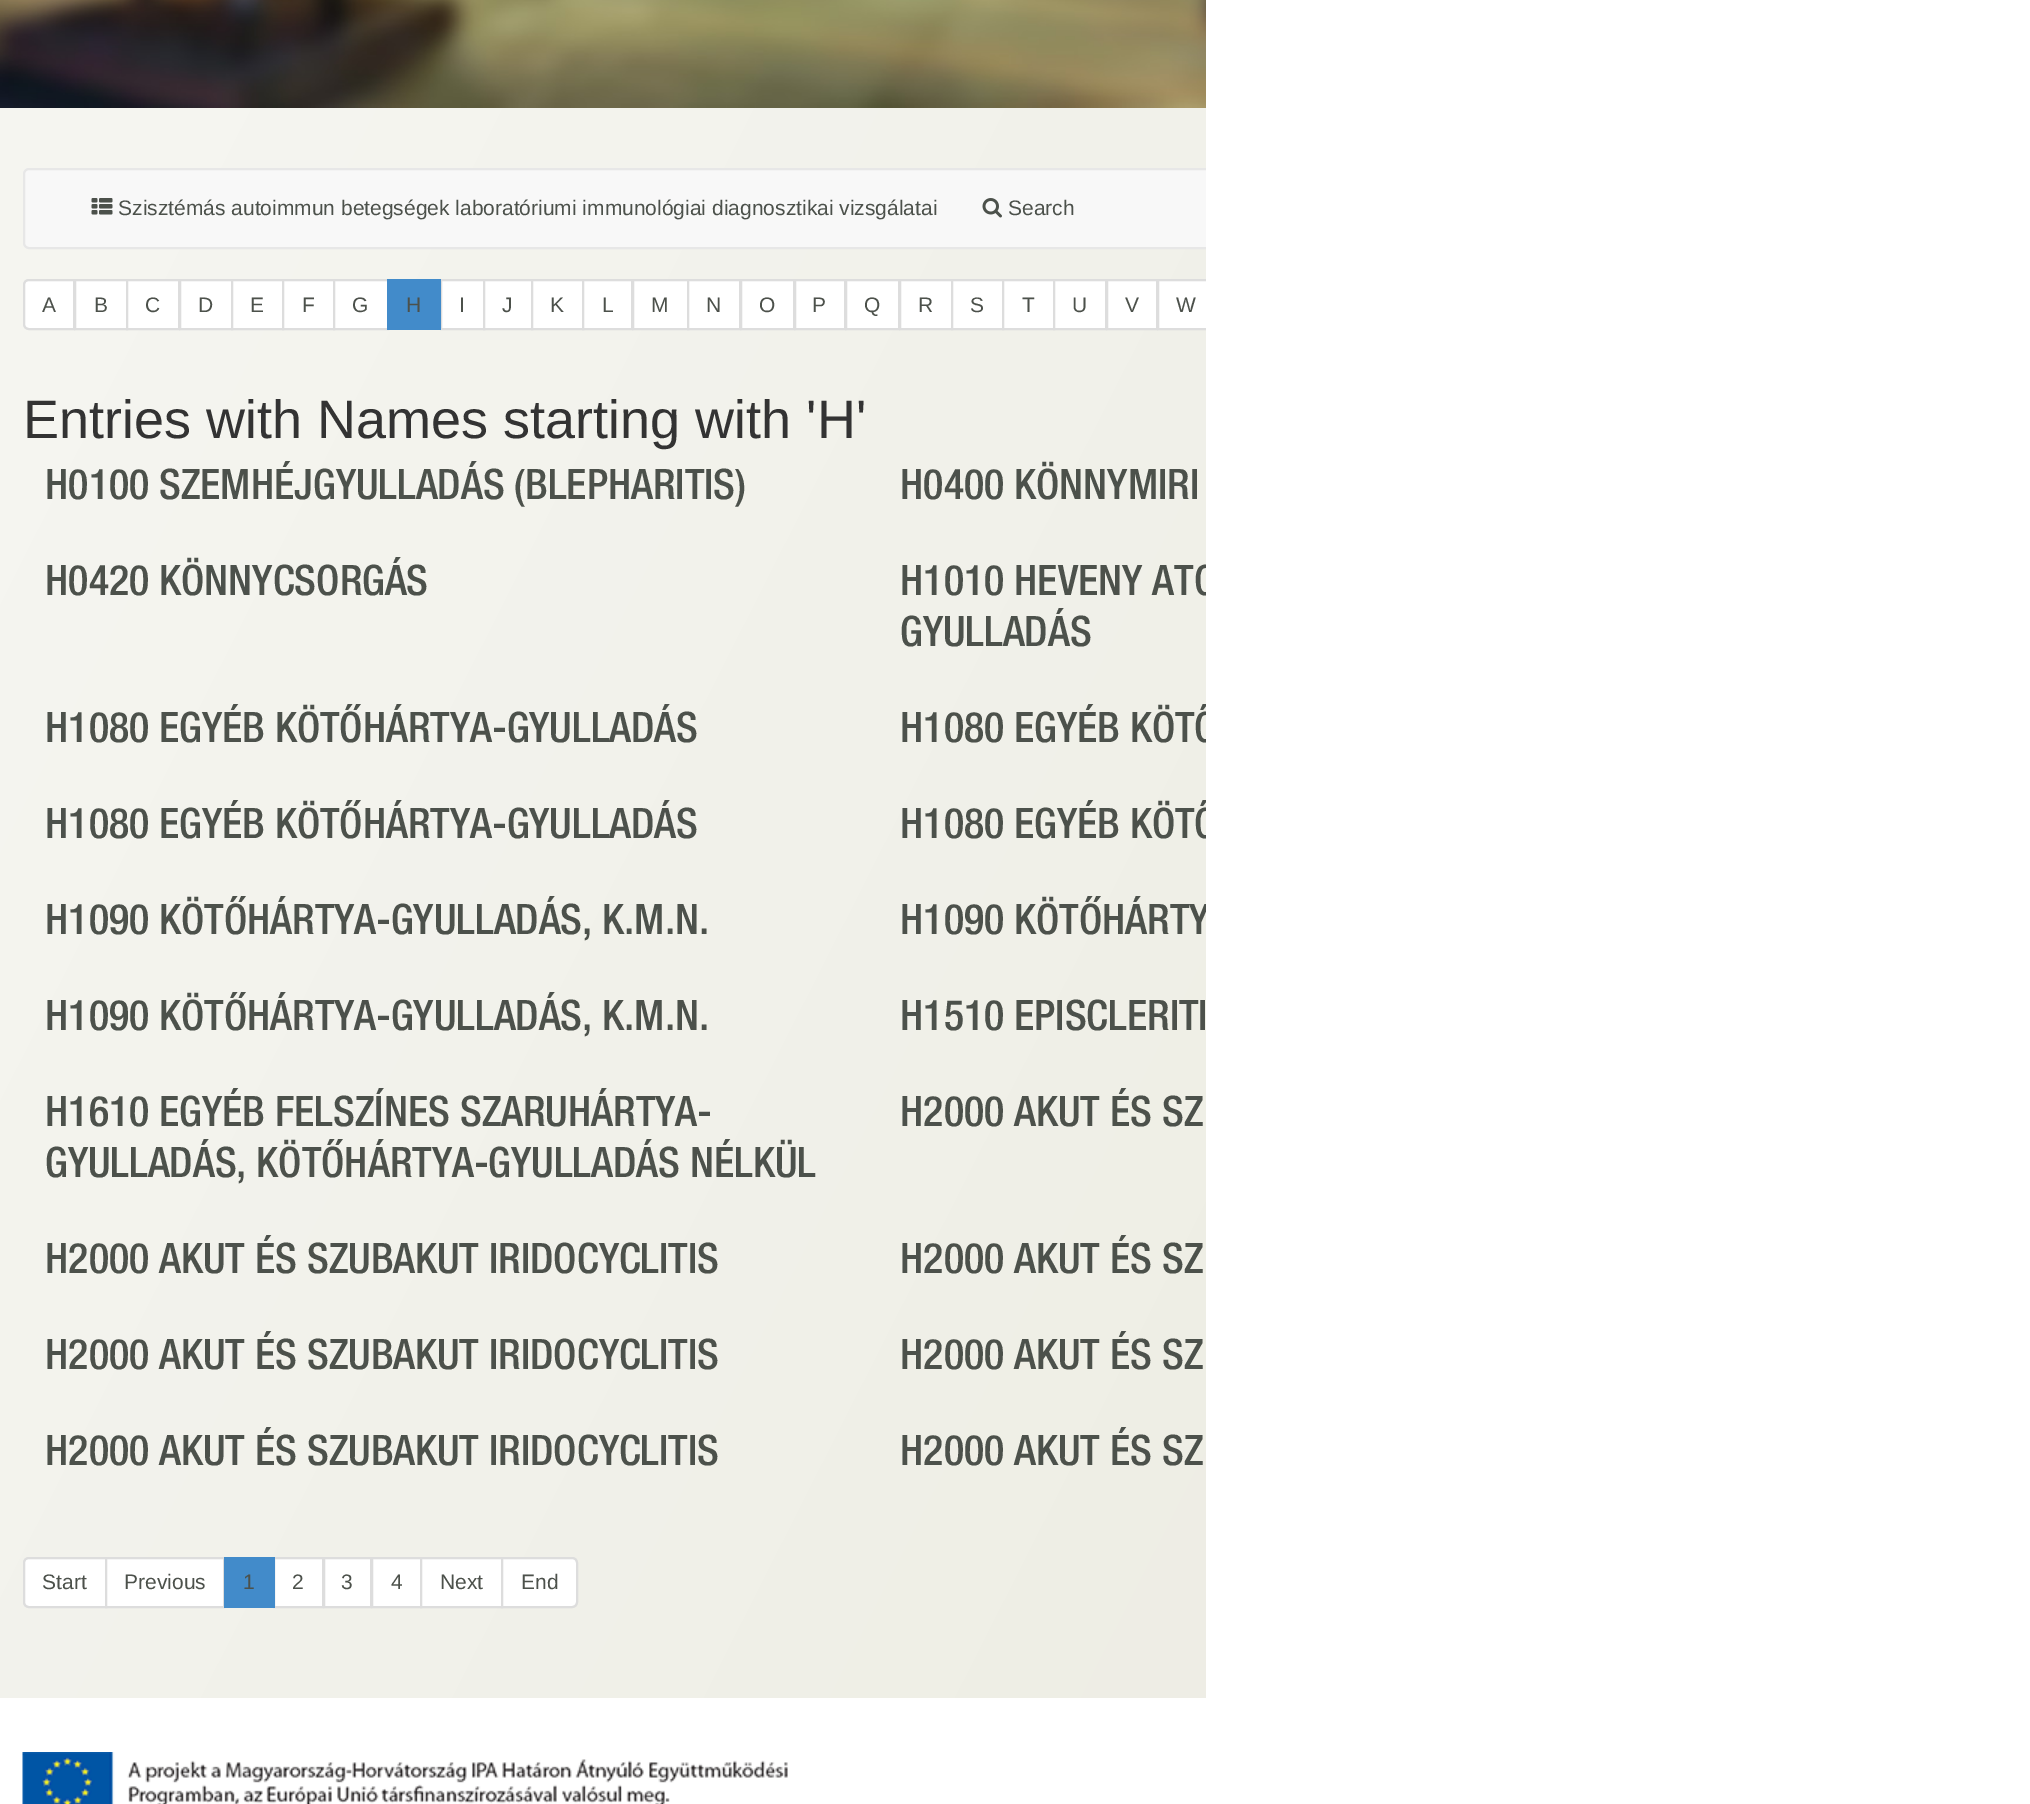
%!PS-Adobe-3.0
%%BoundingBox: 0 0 2030 1804
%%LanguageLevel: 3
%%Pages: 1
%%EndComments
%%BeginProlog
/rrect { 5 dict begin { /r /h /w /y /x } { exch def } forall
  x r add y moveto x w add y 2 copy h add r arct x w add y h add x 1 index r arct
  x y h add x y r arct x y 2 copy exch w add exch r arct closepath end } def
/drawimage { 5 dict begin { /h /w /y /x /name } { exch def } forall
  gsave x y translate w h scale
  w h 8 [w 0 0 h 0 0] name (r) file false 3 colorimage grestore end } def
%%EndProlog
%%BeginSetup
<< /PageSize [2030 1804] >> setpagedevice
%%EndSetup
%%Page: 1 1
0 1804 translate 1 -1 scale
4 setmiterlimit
1 setgray
0 0 2030 1804 rectfill
gsave newpath 0 108 moveto 1206 108 lineto 1206 1698 lineto 0 1698 lineto closepath clip newpath
<< /ShadingType 2 /ColorSpace /DeviceRGB /Coords [-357 287 1563 1259] /Extend [true true] /Function << /FunctionType 2 /Domain [0 1] /C0 [0.969 0.969 0.953] /C1 [0.933 0.929 0.894] /N 1 >> >> shfill grestore
(images/1.raw) 0 0 1206 108 drawimage
0.973 setgray
newpath 29 168 moveto 1206 168 lineto 1206 249 lineto 29 249 lineto 25.5 249 23 246.5 23 243 curveto 23 174 lineto 23 170.5 25.5 168 29 168 curveto closepath fill
gsave
0 0 1206 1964 rectclip
0.906 setgray
2 setlinewidth
24 169 1708 79 5 rrect stroke
grestore
(images/2.raw) 91 198 22 17 drawimage
(images/3.raw) 982 198 20 20 drawimage
1 setgray
newpath 29 280 moveto 74 280 lineto 74 329 lineto 29 329 lineto 26 329 24 327 24 324 curveto 24 285 lineto 24 282 26 280 29 280 curveto closepath gsave fill grestore
0.867 setgray
2 setlinewidth
stroke
1 setgray
newpath 75 280 moveto 127 280 lineto 127 329 lineto 75 329 lineto closepath gsave fill grestore
0.867 setgray
stroke
1 setgray
newpath 127 280 moveto 179 280 lineto 179 329 lineto 127 329 lineto closepath gsave fill grestore
0.867 setgray
stroke
1 setgray
newpath 180 280 moveto 232 280 lineto 232 329 lineto 180 329 lineto closepath gsave fill grestore
0.867 setgray
stroke
1 setgray
newpath 232 280 moveto 283 280 lineto 283 329 lineto 232 329 lineto closepath gsave fill grestore
0.867 setgray
stroke
1 setgray
newpath 283 280 moveto 334 280 lineto 334 329 lineto 283 329 lineto closepath gsave fill grestore
0.867 setgray
stroke
1 setgray
newpath 334 280 moveto 388 280 lineto 388 329 lineto 334 329 lineto closepath gsave fill grestore
0.867 setgray
stroke
1 setgray
newpath 441 280 moveto 484 280 lineto 484 329 lineto 441 329 lineto closepath gsave fill grestore
0.867 setgray
stroke
0.259 0.545 0.792 setrgbcolor
387 279 54 51 rectfill
1 setgray
newpath 484 280 moveto 532 280 lineto 532 329 lineto 484 329 lineto closepath gsave fill grestore
0.867 setgray
stroke
1 setgray
newpath 532 280 moveto 583 280 lineto 583 329 lineto 532 329 lineto closepath gsave fill grestore
0.867 setgray
stroke
1 setgray
newpath 583 280 moveto 632 280 lineto 632 329 lineto 583 329 lineto closepath gsave fill grestore
0.867 setgray
stroke
1 setgray
newpath 633 280 moveto 688 280 lineto 688 329 lineto 633 329 lineto closepath gsave fill grestore
0.867 setgray
stroke
1 setgray
newpath 688 280 moveto 740 280 lineto 740 329 lineto 688 329 lineto closepath gsave fill grestore
0.867 setgray
stroke
1 setgray
newpath 741 280 moveto 794 280 lineto 794 329 lineto 741 329 lineto closepath gsave fill grestore
0.867 setgray
stroke
1 setgray
newpath 795 280 moveto 845 280 lineto 845 329 lineto 795 329 lineto closepath gsave fill grestore
0.867 setgray
stroke
1 setgray
newpath 846 280 moveto 899 280 lineto 899 329 lineto 846 329 lineto closepath gsave fill grestore
0.867 setgray
stroke
1 setgray
newpath 900 280 moveto 952 280 lineto 952 329 lineto 900 329 lineto closepath gsave fill grestore
0.867 setgray
stroke
1 setgray
newpath 952 280 moveto 1003 280 lineto 1003 329 lineto 952 329 lineto closepath gsave fill grestore
0.867 setgray
stroke
1 setgray
newpath 1003 280 moveto 1054 280 lineto 1054 329 lineto 1003 329 lineto closepath gsave fill grestore
0.867 setgray
stroke
1 setgray
newpath 1054 280 moveto 1106 280 lineto 1106 329 lineto 1054 329 lineto closepath gsave fill grestore
0.867 setgray
stroke
1 setgray
newpath 1107 280 moveto 1157 280 lineto 1157 329 lineto 1107 329 lineto closepath gsave fill grestore
0.867 setgray
stroke
1 setgray
1159 281 47 47 rectfill
gsave
0 0 1206 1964 rectclip
0.867 setgray
1158 280 58 49 rectstroke
grestore
newpath 29 1558 moveto 106 1558 lineto 106 1607 lineto 29 1607 lineto 26 1607 24 1605 24 1602 curveto 24 1563 lineto 24 1560 26 1558 29 1558 curveto closepath gsave fill grestore
0.867 setgray
stroke
1 setgray
newpath 106 1558 moveto 224 1558 lineto 224 1607 lineto 106 1607 lineto closepath gsave fill grestore
0.867 setgray
stroke
1 setgray
newpath 274 1558 moveto 323 1558 lineto 323 1607 lineto 274 1607 lineto closepath gsave fill grestore
0.867 setgray
stroke
0.259 0.545 0.792 setrgbcolor
224 1557 51 51 rectfill
1 setgray
newpath 324 1558 moveto 371 1558 lineto 371 1607 lineto 324 1607 lineto closepath gsave fill grestore
0.867 setgray
stroke
1 setgray
newpath 372 1558 moveto 421 1558 lineto 421 1607 lineto 372 1607 lineto closepath gsave fill grestore
0.867 setgray
stroke
1 setgray
newpath 421 1558 moveto 502 1558 lineto 502 1607 lineto 421 1607 lineto closepath gsave fill grestore
0.867 setgray
stroke
1 setgray
newpath 502 1558 moveto 572 1558 lineto 575 1558 577 1560 577 1563 curveto 577 1602 lineto 577 1605 575 1607 572 1607 curveto 502 1607 lineto closepath gsave fill grestore
0.867 setgray
stroke
(images/4.raw) 22 1752 766 52 drawimage
/LiberationSans-Regular [21 0 0 -21 0 0] selectfont
0.298 0.318 0.294 setrgbcolor
118 215 moveto (Szisztémás autoimmun betegségek laboratóriumi immunológiai diagnosztikai vizsgálatai) show
1008 215 moveto (Search) show
42 312 moveto (A) show
94 312 moveto (B) show
145 312 moveto (C) show
198 312 moveto (D) show
250 312 moveto (E) show
302 312 moveto (F) show
352 312 moveto (G) show
406 312 moveto (H) show
459 312 moveto (I) show
502 312 moveto (J) show
550 312 moveto (K) show
602 312 moveto (L) show
651 312 moveto (M) show
706 312 moveto (N) show
759 312 moveto (O) show
812 312 moveto (P) show
864 312 moveto (Q) show
918 312 moveto (R) show
970 312 moveto (S) show
1022 312 moveto (T) show
1072 312 moveto (U) show
1125 312 moveto (V) show
1176 312 moveto (W) show
/LiberationSans-Regular [54 0 0 -54 0 0] selectfont
0.2 setgray
23 438 moveto (Entries with Names starting with 'H') show
/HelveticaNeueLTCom-Medium [42 0 0 -42 0 0] selectfont
0.298 0.318 0.294 setrgbcolor
45 499 moveto (H0100 SZEMHÉJGYULLADÁS \(BLEPHARITIS\)) show
900 499 moveto (H0400 KÖNNYMIRI) show
45 595 moveto (H0420 KÖNNYCSORGÁS) show
gsave
0 0 1206 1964 rectclip
900 595 moveto (H1010 HEVENY ATO) show
grestore
900 646 moveto (GYULLADÁS) show
45 742 moveto (H1080 EGYÉB KÖTŐHÁRTYA-GYULLADÁS) show
gsave
0 0 1206 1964 rectclip
900 742 moveto (H1080 EGYÉB KÖTŐ) show
grestore
45 838 moveto (H1080 EGYÉB KÖTŐHÁRTYA-GYULLADÁS) show
gsave
0 0 1206 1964 rectclip
900 838 moveto (H1080 EGYÉB KÖTŐ) show
grestore
45 934 moveto (H1090 KÖTŐHÁRTYA-GYULLADÁS, K.M.N.) show
gsave
0 0 1206 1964 rectclip
900 934 moveto (H1090 KÖTŐHÁRTY) show
grestore
45 1030 moveto (H1090 KÖTŐHÁRTYA-GYULLADÁS, K.M.N.) show
900 1030 moveto (H1510 EPISCLERITI) show
45 1126 moveto (H1610 EGYÉB FELSZÍNES SZARUHÁRTYA-) show
45 1177 moveto (GYULLADÁS, KÖTŐHÁRTYA-GYULLADÁS NÉLKÜL) show
900 1126 moveto (H2000 AKUT ÉS SZ) show
45 1273 moveto (H2000 AKUT ÉS SZUBAKUT IRIDOCYCLITIS) show
900 1273 moveto (H2000 AKUT ÉS SZ) show
45 1369 moveto (H2000 AKUT ÉS SZUBAKUT IRIDOCYCLITIS) show
900 1369 moveto (H2000 AKUT ÉS SZ) show
45 1465 moveto (H2000 AKUT ÉS SZUBAKUT IRIDOCYCLITIS) show
900 1465 moveto (H2000 AKUT ÉS SZ) show
/LiberationSans-Regular [21 0 0 -21 0 0] selectfont
42 1589 moveto (Start) show
124 1589 moveto (Previous) show
243 1589 moveto (1) show
292 1589 moveto (2) show
341 1589 moveto (3) show
391 1589 moveto (4) show
440 1589 moveto (Next) show
521 1589 moveto (End) show
showpage
%%EOF
